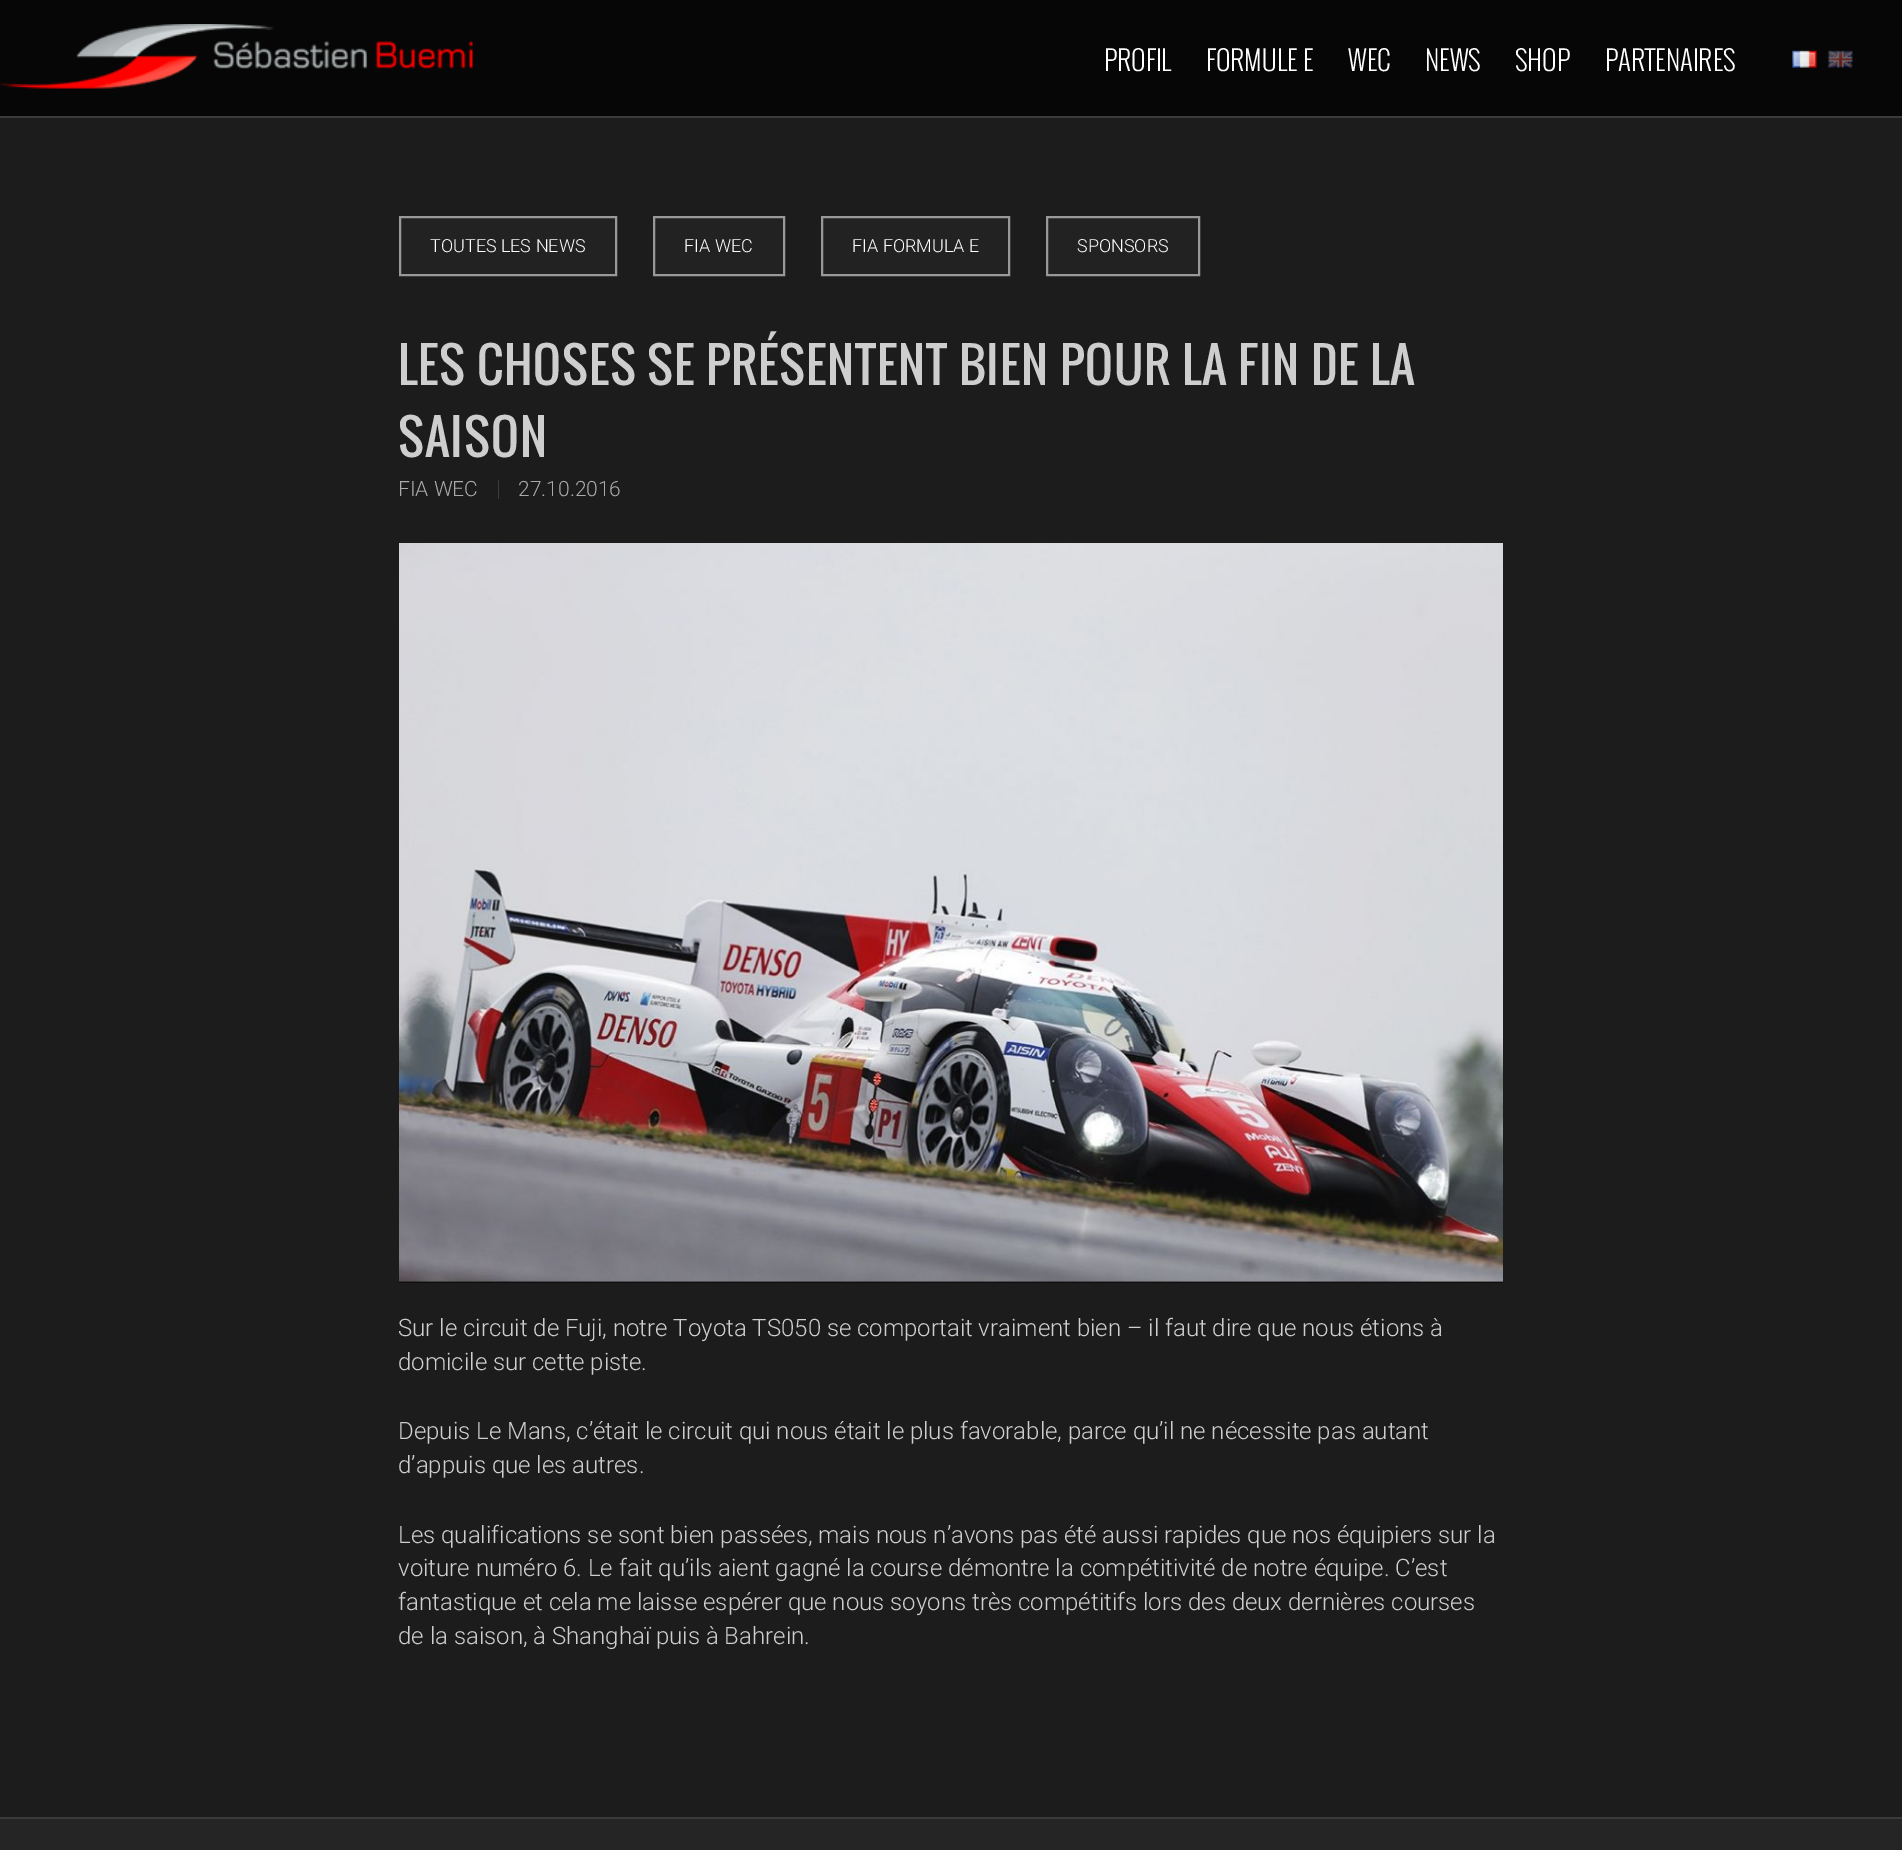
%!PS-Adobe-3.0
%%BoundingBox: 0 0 1902 1850
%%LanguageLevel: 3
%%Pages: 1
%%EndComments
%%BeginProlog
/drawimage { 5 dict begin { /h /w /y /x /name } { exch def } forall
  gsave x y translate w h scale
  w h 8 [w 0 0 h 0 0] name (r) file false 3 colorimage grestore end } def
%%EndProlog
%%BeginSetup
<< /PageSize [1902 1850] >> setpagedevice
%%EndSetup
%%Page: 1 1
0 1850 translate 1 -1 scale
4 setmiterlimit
0.11 setgray
0 0 1902 1850 rectfill
0.024 setgray
0 0 1902 116 rectfill
0.227 setgray
0 116 1902 2 rectfill
(images/1.raw) 0 24 473 65 drawimage
(images/2.raw) 1792 50 25 18 drawimage
(images/3.raw) 1828 50 25 18 drawimage
0.133 setgray
newpath 400 217 moveto 616 217 lineto 616 275 lineto 400 275 lineto closepath gsave fill grestore
0.6 setgray
2 setlinewidth
stroke
0.133 setgray
newpath 654 217 moveto 784 217 lineto 784 275 lineto 654 275 lineto closepath gsave fill grestore
0.6 setgray
stroke
0.133 setgray
newpath 822 217 moveto 1009 217 lineto 1009 275 lineto 822 275 lineto closepath gsave fill grestore
0.6 setgray
stroke
0.133 setgray
newpath 1047 217 moveto 1199 217 lineto 1199 275 lineto 1047 275 lineto closepath gsave fill grestore
0.6 setgray
stroke
(images/4.raw) 399 543 1104 740 drawimage
0.145 setgray
0 1819 1902 31 rectfill
0.227 setgray
0 1817 1902 2 rectfill
/Oswald-Light [27 0 0 -27 0 0] selectfont
1 setgray
1104 71 moveto (PROFIL) show
1206 71 moveto (FORMULE E) show
1348 71 moveto (WEC) show
1425 71 moveto (NEWS) show
1515 71 moveto (SHOP) show
1605 71 moveto (PARTENAIRES) show
/Roboto-Light [18 0 0 -18 0 0] selectfont
430 252 moveto (TOUTES LES NEWS) show
684 252 moveto (FIA WEC) show
852 252 moveto (FIA FORMULA E) show
1077 252 moveto (SPONSORS) show
/Oswald-Regular [48 0 0 -48 0 0] selectfont
0.808 setgray
398 385 moveto 0.95 0 (LES CHOSES SE PRÉSENTENT BIEN POUR LA FIN DE LA) ashow
398 457 moveto 0.95 0 (SAISON) ashow
/Roboto-Light [21 0 0 -21 0 0] selectfont
0.671 setgray
398 496 moveto (FIA WEC) show
/Roboto-Thin [22 0 0 -22 0 0] selectfont
0.357 setgray
496 496 moveto (|) show
/Roboto-Light [21 0 0 -21 0 0] selectfont
0.671 setgray
518 496 moveto (27.10.2016) show
/Roboto-Light [24 0 0 -24 0 0] selectfont
0.808 setgray
398 1336 moveto (Sur le circuit de Fuji, notre Toyota TS050 se comportait vraiment bien – il faut dire que nous étions à) show
398 1370 moveto (domicile sur cette piste.) show
398 1439 moveto (Depuis Le Mans, c’était le circuit qui nous était le plus favorable, parce qu’il ne nécessite pas autant) show
398 1473 moveto (d’appuis que les autres.) show
398 1543 moveto (Les qualifications se sont bien passées, mais nous n’avons pas été aussi rapides que nos équipiers sur la) show
398 1576 moveto (voiture numéro 6. Le fait qu’ils aient gagné la course démontre la compétitivité de notre équipe. C’est) show
398 1610 moveto (fantastique et cela me laisse espérer que nous soyons très compétitifs lors des deux dernières courses) show
398 1644 moveto (de la saison, à Shanghaï puis à Bahrein.) show
showpage
%%EOF
